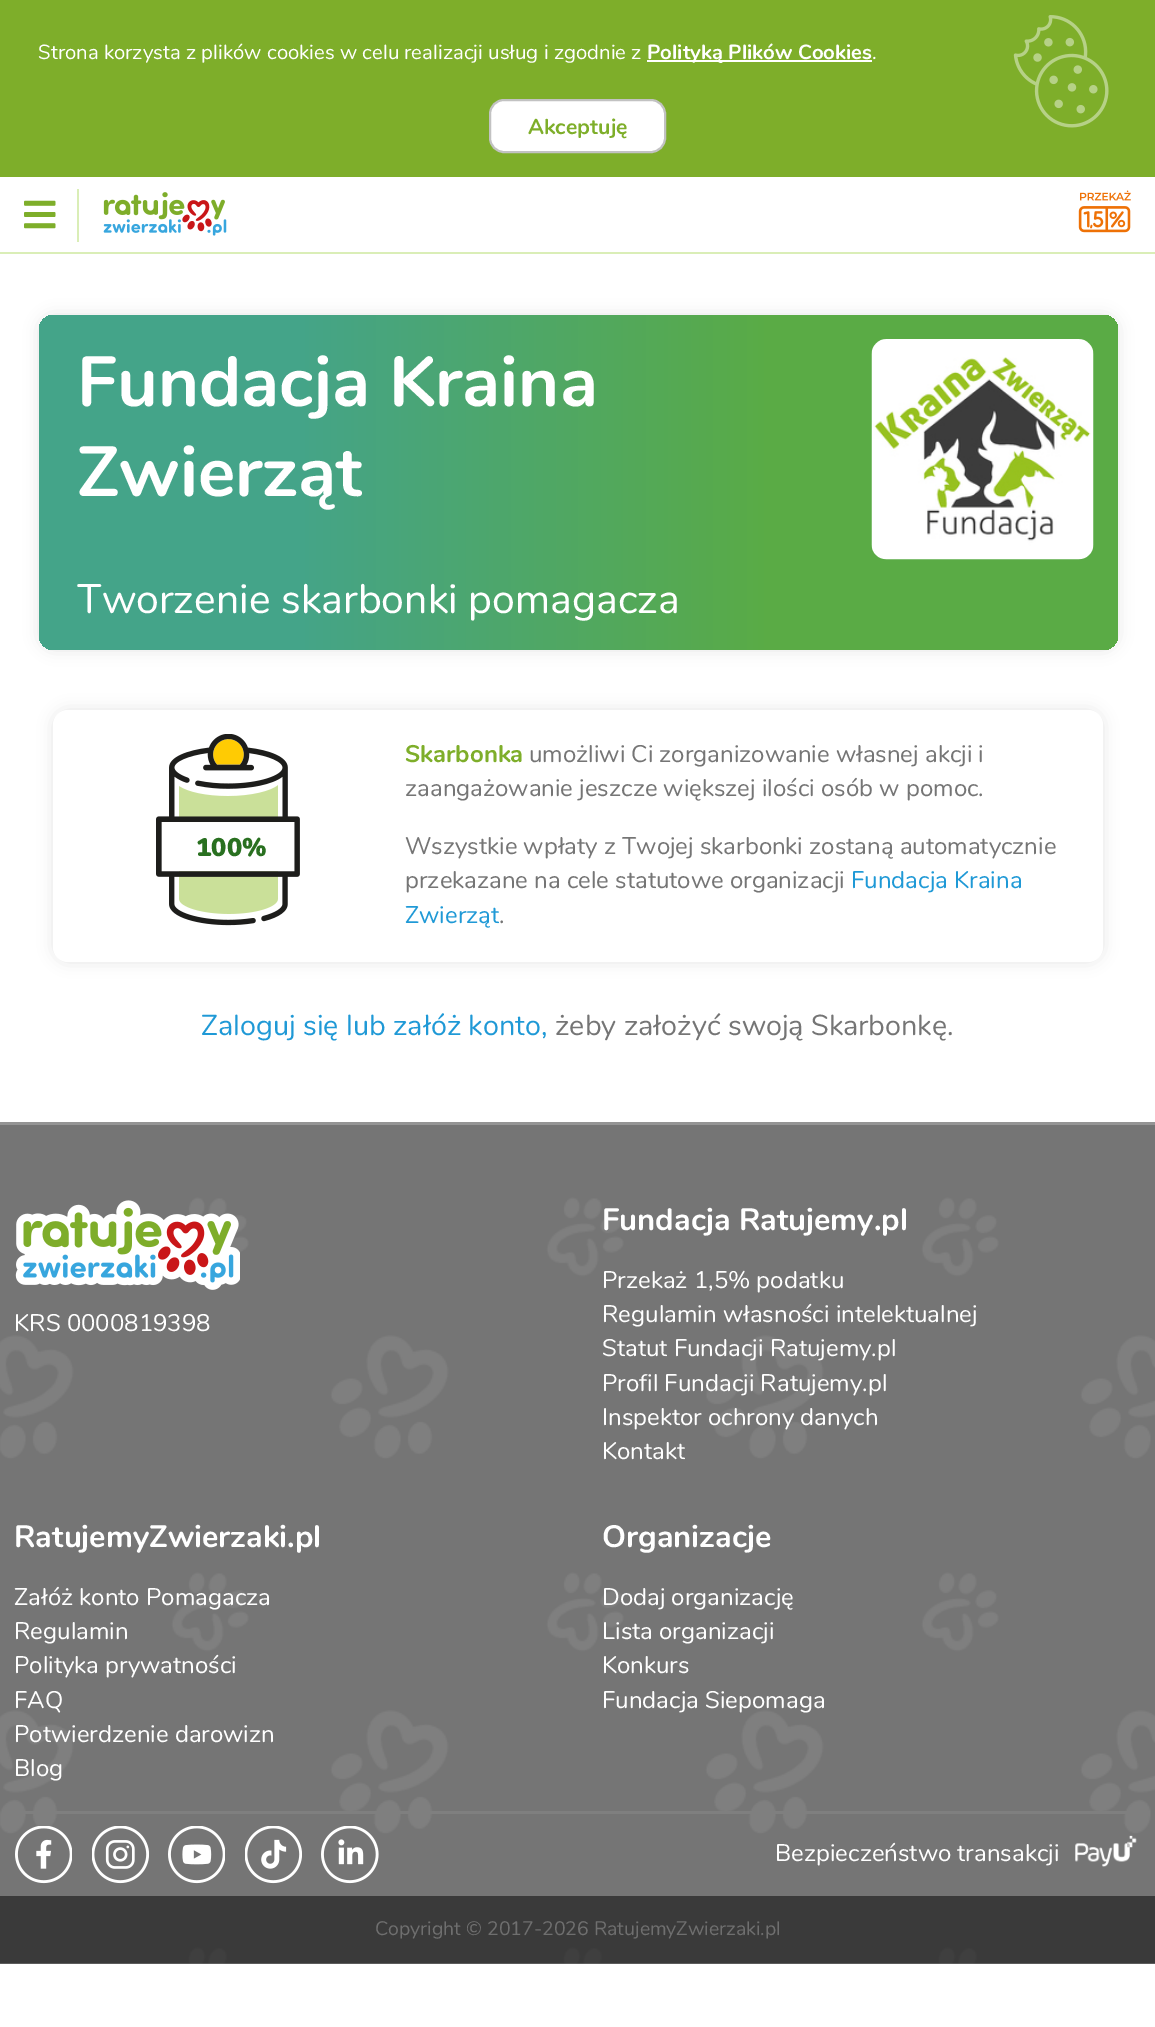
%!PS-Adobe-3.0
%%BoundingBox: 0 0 1155 2027
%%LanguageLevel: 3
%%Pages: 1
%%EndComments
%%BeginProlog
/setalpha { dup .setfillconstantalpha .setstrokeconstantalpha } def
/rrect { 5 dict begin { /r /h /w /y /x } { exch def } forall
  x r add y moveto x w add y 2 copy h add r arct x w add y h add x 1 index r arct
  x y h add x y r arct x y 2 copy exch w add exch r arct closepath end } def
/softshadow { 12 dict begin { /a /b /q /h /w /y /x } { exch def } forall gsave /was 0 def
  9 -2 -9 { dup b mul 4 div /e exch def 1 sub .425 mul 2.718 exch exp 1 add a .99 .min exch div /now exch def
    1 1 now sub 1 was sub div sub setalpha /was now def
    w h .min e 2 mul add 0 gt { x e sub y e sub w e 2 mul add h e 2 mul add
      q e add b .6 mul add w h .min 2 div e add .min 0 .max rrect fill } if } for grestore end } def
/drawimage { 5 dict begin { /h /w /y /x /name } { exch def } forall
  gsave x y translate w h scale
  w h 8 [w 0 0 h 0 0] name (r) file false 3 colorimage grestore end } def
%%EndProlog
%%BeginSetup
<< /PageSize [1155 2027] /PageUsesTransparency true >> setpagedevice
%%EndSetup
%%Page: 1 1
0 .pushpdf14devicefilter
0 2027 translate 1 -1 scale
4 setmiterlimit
1 setgray
0 0 1155 2027 rectfill
0.494 0.682 0.165 setrgbcolor
0 0 1155 177 rectfill
1 setgray
647 60 225 2 rectfill
(images/1.raw) 1013 15 96 113 drawimage
490 100 175 52 14 rrect gsave fill grestore
0.761 setgray
2 setlinewidth
stroke
0.855 0.933 0.718 setrgbcolor
0 252 1155 2 rectfill
77 189 2 53 rectfill
(images/2.raw) 24 200 32 29 drawimage
(images/3.raw) 103 192 124 44 drawimage
(images/4.raw) 1078 190 53 43 drawimage
0.894 setgray
39 315 1079 335 15 7.5 1 softshadow
gsave 39 315 1079 335 15 rrect clip newpath
<< /ShadingType 2 /ColorSpace /DeviceRGB /Coords [39 482 1118 482] /Extend [true true] /Function << /FunctionType 3 /Domain [0 1] /Functions [<< /FunctionType 2 /Domain [0 1] /C0 [0.267 0.643 0.537] /C1 [0.267 0.643 0.537] /N 1 >> << /FunctionType 2 /Domain [0 1] /C0 [0.267 0.643 0.537] /C1 [0.353 0.671 0.271] /N 1 >> << /FunctionType 2 /Domain [0 1] /C0 [0.353 0.671 0.271] /C1 [0.353 0.671 0.271] /N 1 >>] /Bounds [0.24 0.68] /Encode [0 1 0 1 0 1] >> >> shfill grestore
(images/5.raw) 871 339 223 221 drawimage
53 710 1050 252 15 7.5 1 softshadow
1 setgray
53 710 1050 252 15 rrect fill
0.792 0.878 0.6 setrgbcolor
newpath 228 796 moveto 206 796 188 792 179 786 curveto 179 899 lineto 179 907 202 914 229 914 curveto 256 914 278 907 278 899 curveto 278 785 lineto 271 791 251 796 228 796 curveto closepath fill
(images/6.raw) 156 734 144 192 drawimage
(images/7.raw) 0 1125 1155 839 drawimage
0.58 setgray
0 1122 1155 3 rectfill
0.498 setgray
25 1811 1102 3 rectfill
(images/8.raw) 15 1200 225 90 drawimage
(images/9.raw) 15 1826 57 58 drawimage
(images/10.raw) 92 1826 57 58 drawimage
(images/11.raw) 168 1826 57 58 drawimage
(images/12.raw) 245 1826 57 58 drawimage
(images/13.raw) 321 1826 58 58 drawimage
(images/14.raw) 1075 1835 62 32 drawimage
0.5 setalpha
0 setgray
0 1896 1155 68 rectfill
/Nunito-Regular [20.4 0 0 -20.4 0 0] selectfont
1 setalpha
1 setgray
38 59 moveto (Strona korzysta z plików cookies w celu realizacji usług i zgodnie z) show
/Nunito-Bold [20.4 0 0 -20.4 0 0] selectfont
647 59 moveto (Polityką Plików Cookies) show
/Nunito-Regular [20.4 0 0 -20.4 0 0] selectfont
872 59 moveto (.) show
/Nunito-Bold [21.5 0 0 -21.5 0 0] selectfont
0.494 0.682 0.165 setrgbcolor
528 134 moveto (Akceptuję) show
/Nunito-Bold [70.5 0 0 -70.5 0 0] selectfont
1 setgray
77 406 moveto (Fundacja Kraina) show
77 496 moveto (Zwierząt) show
/Nunito-Regular [41.1 0 0 -41.1 0 0] selectfont
77 613 moveto (Tworzenie skarbonki pomagacza) show
/Nunito-Black [25.5 0 0 -25.5 0 0] selectfont
0.161 0.439 0.125 setrgbcolor
196 856 moveto (100%) show
/Nunito-Bold [24 0 0 -24 0 0] selectfont
0.494 0.682 0.165 setrgbcolor
405 762 moveto (Skarbonka) show
/Nunito-Regular [24 0 0 -24 0 0] selectfont
0.459 setgray
529 762 moveto (umożliwi Ci zorganizowanie własnej akcji i) show
405 796 moveto (zaangażowanie jeszcze większej ilości osób w pomoc.) show
405 854 moveto (Wszystkie wpłaty z Twojej skarbonki zostaną automatycznie) show
405 888 moveto (przekazane na cele statutowe organizacji) show
0.122 0.6 0.839 setrgbcolor
851 888 moveto (Fundacja Kraina) show
405 923 moveto (Zwierząt) show
0.459 setgray
499 923 moveto (.) show
/Nunito-Regular [28.75 0 0 -28.75 0 0] selectfont
0.122 0.6 0.839 setrgbcolor
201 1035 moveto (Zaloguj się lub załóż konto,) show
0.459 setgray
555 1035 moveto (żeby założyć swoją Skarbonkę.) show
/Nunito-Regular [24 0 0 -24 0 0] selectfont
1 setgray
14 1331 moveto (KRS 0000819398) show
/Nunito-Bold [30.9 0 0 -30.9 0 0] selectfont
602 1230 moveto (Fundacja Ratujemy.pl) show
/Nunito-Regular [24 0 0 -24 0 0] selectfont
602 1288 moveto (Przekaż 1,5% podatku) show
602 1322 moveto (Regulamin własności intelektualnej) show
602 1356 moveto (Statut Fundacji Ratujemy.pl) show
602 1391 moveto (Profil Fundacji Ratujemy.pl) show
602 1425 moveto (Inspektor ochrony danych) show
602 1459 moveto (Kontakt) show
/Nunito-Bold [30.9 0 0 -30.9 0 0] selectfont
14 1547 moveto (RatujemyZwierzaki.pl) show
/Nunito-Regular [24 0 0 -24 0 0] selectfont
14 1605 moveto (Załóż konto Pomagacza) show
14 1639 moveto (Regulamin) show
14 1673 moveto (Polityka prywatności) show
14 1708 moveto (FAQ) show
14 1742 moveto (Potwierdzenie darowizn) show
14 1776 moveto (Blog) show
/Nunito-Bold [30.9 0 0 -30.9 0 0] selectfont
602 1547 moveto (Organizacje) show
/Nunito-Regular [24 0 0 -24 0 0] selectfont
602 1605 moveto (Dodaj organizację) show
602 1639 moveto (Lista organizacji) show
602 1673 moveto (Konkurs) show
602 1708 moveto (Fundacja Siepomaga) show
775 1861 moveto (Bezpieczeństwo transakcji) show
/Nunito-Regular [19.5 0 0 -19.5 0 0] selectfont
0.435 setgray
375 1935 moveto (Copyright © 2017-2026 RatujemyZwierzaki.pl) show
.poppdf14devicefilter showpage
%%EOF
